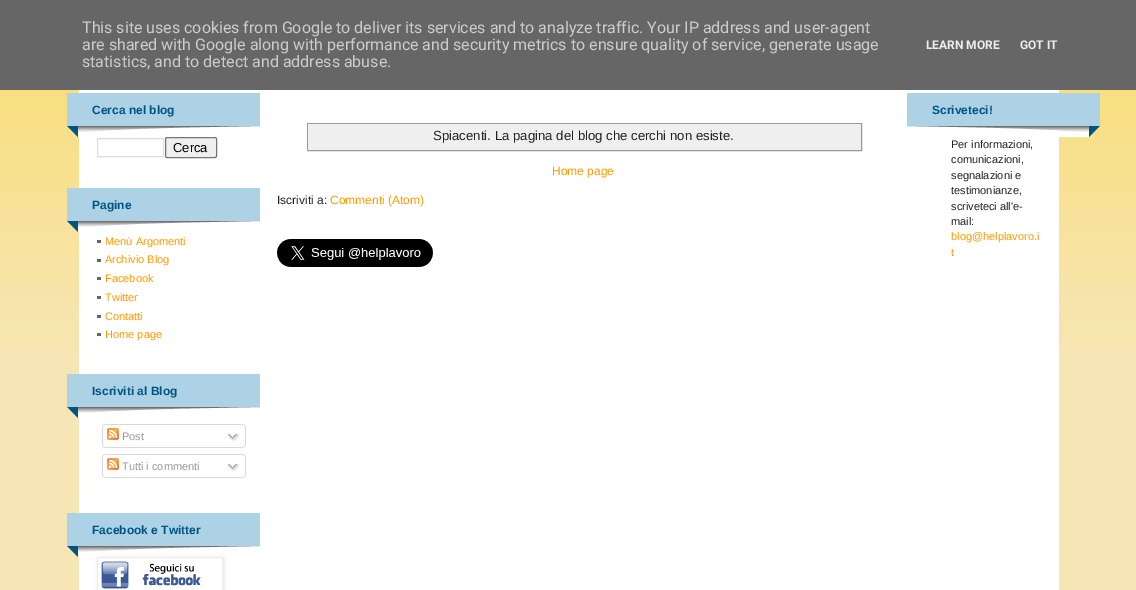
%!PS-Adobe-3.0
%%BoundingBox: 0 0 1136 590
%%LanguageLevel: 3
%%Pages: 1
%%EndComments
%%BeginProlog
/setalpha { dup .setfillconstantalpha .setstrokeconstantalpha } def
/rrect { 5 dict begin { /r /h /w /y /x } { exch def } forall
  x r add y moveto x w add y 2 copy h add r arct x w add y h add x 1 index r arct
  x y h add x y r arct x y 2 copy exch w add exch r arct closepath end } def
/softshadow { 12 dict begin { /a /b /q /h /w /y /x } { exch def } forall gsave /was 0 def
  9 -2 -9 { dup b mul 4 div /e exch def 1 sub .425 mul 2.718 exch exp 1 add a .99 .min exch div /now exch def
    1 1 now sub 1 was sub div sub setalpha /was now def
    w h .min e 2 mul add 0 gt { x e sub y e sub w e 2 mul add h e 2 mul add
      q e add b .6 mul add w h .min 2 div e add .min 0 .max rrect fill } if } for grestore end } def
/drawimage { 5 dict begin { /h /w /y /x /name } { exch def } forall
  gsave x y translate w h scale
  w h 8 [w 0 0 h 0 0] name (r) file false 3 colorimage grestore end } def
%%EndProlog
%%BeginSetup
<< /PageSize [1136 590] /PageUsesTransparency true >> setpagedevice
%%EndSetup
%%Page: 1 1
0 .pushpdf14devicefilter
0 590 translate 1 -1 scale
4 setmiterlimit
0.965 0.902 0.71 setrgbcolor
0 0 1136 590 rectfill
(images/1.raw) 0 90 1136 260 drawimage
0.4 setgray
0 0 1136 90 rectfill
1 setgray
79 90 980 500 rectfill
(images/2.raw) 67 93 193 44 drawimage
0.867 setgray
97.5 138.5 66 18 rectstroke
0.937 setgray
165.5 137.5 51 20 1.5 rrect gsave fill grestore
0.463 setgray
stroke
(images/3.raw) 67 188 193 44 drawimage
0.4 setgray
97 240 4 3 rectfill
97 259 4 3 rectfill
97 277 4 3 rectfill
97 296 4 3 rectfill
97 315 4 3 rectfill
97 333 4 3 rectfill
(images/4.raw) 67 374 193 44 drawimage
(images/5.raw) 102 424 144 21 drawimage
(images/6.raw) 107 428 12 12 drawimage
(images/7.raw) 227 433 13 9 drawimage
(images/8.raw) 102 445 144 3 drawimage
(images/5.raw) 102 454 144 21 drawimage
(images/6.raw) 107 458 12 12 drawimage
(images/7.raw) 227 463 13 9 drawimage
(images/8.raw) 102 475 144 3 drawimage
(images/4.raw) 67 513 193 44 drawimage
gsave
newpath 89 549 moveto 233 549 lineto 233 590 lineto 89 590 lineto closepath 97 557 moveto 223 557 lineto 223 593 lineto 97 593 lineto closepath eoclip newpath
0 setgray
98 558 126 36 0 2.5 0.1 softshadow
grestore
0.933 setgray
97.5 557.5 125 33 rectstroke
(images/9.raw) 100 561 101 28 drawimage
0.6 setgray
307.5 123.5 554 27 rectstroke
0.937 setgray
308 124 553 26 rectfill
(images/10.raw) 277 239 156 28 drawimage
(images/11.raw) 907 93 193 44 drawimage
/Roboto-Regular [16 0 0 -16 0 0] selectfont
0.8 setgray
82 33 moveto (This site uses cookies from Google to deliver its services and to analyze traffic. Your IP address and user-agent) show
82 50 moveto (are shared with Google along with performance and security metrics to ensure quality of service, generate usage) show
82 67 moveto (statistics, and to detect and address abuse.) show
/Roboto-Bold [12 0 0 -12 0 0] selectfont
0.933 setgray
926 49 moveto (LEARN MORE) show
1020 49 moveto (GOT IT) show
/LiberationSans-Bold [12 0 0 -12 0 0] selectfont
0 0.329 0.502 setrgbcolor
92 114 moveto (Cerca nel blog) show
/LiberationSans-Regular [13 0 0 -13 0 0] selectfont
0 setgray
173 152 moveto (Cerca) show
/LiberationSans-Bold [12 0 0 -12 0 0] selectfont
0 0.329 0.502 setrgbcolor
92 209 moveto (Pagine) show
/LiberationSans-Regular [11 0 0 -11 0 0] selectfont
1 0.6 0 setrgbcolor
105 245 moveto (Menù Argomenti) show
105 263 moveto (Archivio Blog) show
105 282 moveto (Facebook) show
105 301 moveto (Twitter) show
105 320 moveto (Contatti) show
105 338 moveto (Home page) show
/LiberationSans-Bold [12 0 0 -12 0 0] selectfont
0 0.329 0.502 setrgbcolor
92 395 moveto (Iscriviti al Blog) show
/LiberationSans-Regular [11 0 0 -11 0 0] selectfont
0.6 setgray
122 440 moveto (Post) show
122 470 moveto (Tutti i commenti) show
/LiberationSans-Bold [12 0 0 -12 0 0] selectfont
0 0.329 0.502 setrgbcolor
92 534 moveto (Facebook e Twitter) show
/LiberationSans-Regular [13.2 0 0 -13.2 0 0] selectfont
0.133 setgray
433 140 moveto (Spiacenti. La pagina del blog che cerchi non esiste.) show
/LiberationSans-Regular [12 0 0 -12 0 0] selectfont
1 0.6 0 setrgbcolor
552 175 moveto (Home page) show
0.133 setgray
277 204 moveto (Iscriviti a:) show
1 0.6 0 setrgbcolor
330 204 moveto (Commenti \(Atom\)) show
/LiberationSans-Bold [12 0 0 -12 0 0] selectfont
0 0.329 0.502 setrgbcolor
932 114 moveto (Scriveteci!) show
/LiberationSans-Regular [11 0 0 -11 0 0] selectfont
0.133 setgray
951 148 moveto (Per informazioni,) show
951 163 moveto (comunicazioni,) show
951 179 moveto (segnalazioni e) show
951 194 moveto (testimonianze,) show
951 210 moveto (scriveteci all'e-) show
951 225 moveto (mail:) show
1 0.6 0 setrgbcolor
951 240 moveto (blog@helplavoro.i) show
951 256 moveto (t) show
.poppdf14devicefilter showpage
%%EOF
